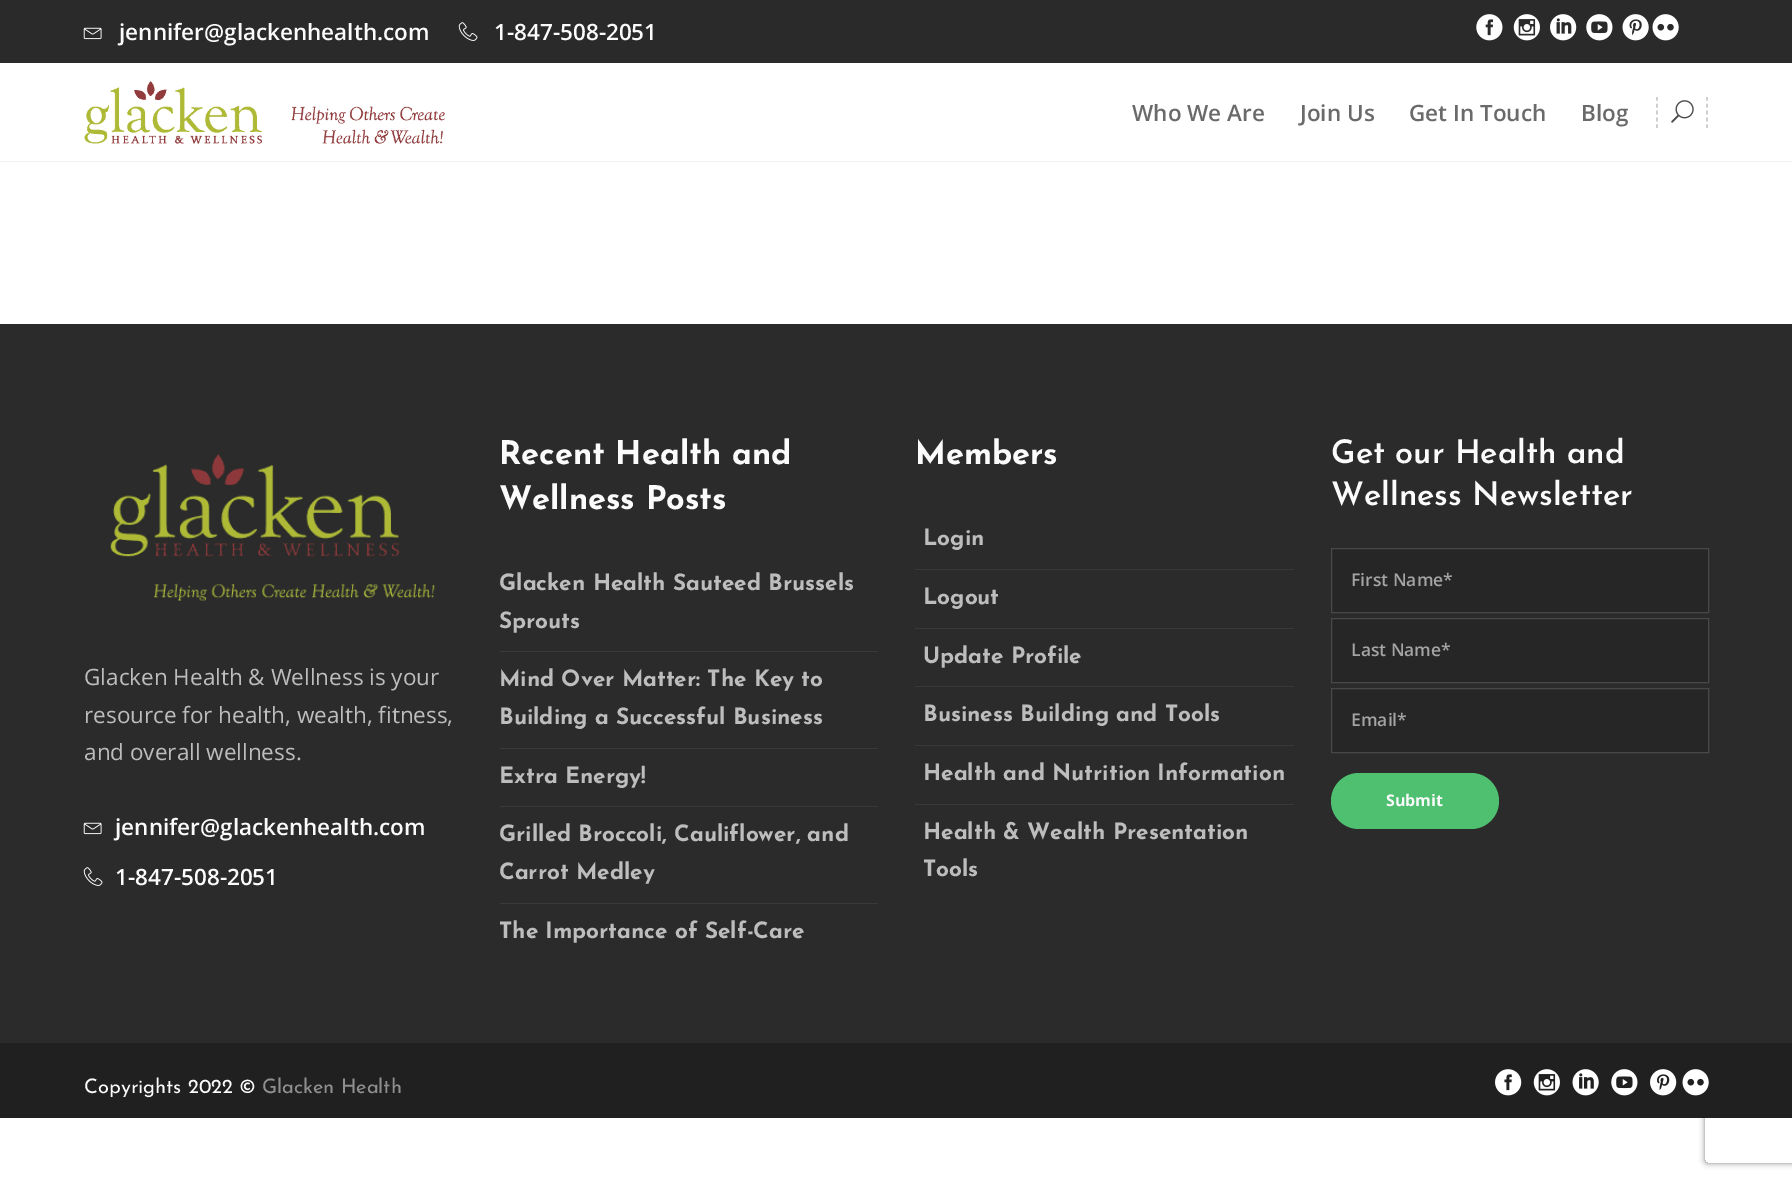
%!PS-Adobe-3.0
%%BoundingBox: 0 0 1792 1179
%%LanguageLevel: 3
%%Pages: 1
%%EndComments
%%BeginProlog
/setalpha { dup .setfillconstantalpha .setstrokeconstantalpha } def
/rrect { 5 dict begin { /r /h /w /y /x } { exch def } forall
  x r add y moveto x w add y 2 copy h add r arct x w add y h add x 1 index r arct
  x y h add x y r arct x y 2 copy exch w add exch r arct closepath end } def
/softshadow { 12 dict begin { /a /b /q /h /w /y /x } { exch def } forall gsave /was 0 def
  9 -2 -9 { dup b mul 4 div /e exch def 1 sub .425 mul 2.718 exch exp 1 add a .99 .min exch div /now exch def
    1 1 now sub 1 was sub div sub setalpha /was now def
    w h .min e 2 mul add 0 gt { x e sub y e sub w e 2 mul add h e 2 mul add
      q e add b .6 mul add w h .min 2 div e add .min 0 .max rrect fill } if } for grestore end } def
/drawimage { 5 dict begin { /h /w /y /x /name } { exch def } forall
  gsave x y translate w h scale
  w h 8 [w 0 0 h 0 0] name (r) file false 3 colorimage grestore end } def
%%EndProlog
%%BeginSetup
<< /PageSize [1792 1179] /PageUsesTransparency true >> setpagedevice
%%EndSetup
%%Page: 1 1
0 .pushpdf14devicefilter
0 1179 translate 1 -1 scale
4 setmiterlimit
1 setgray
0 0 1792 1179 rectfill
0.165 setgray
0 0 1792 63 rectfill
(images/1.raw) 83 27 19 13 drawimage
(images/2.raw) 458 22 20 19 drawimage
(images/3.raw) 1476 14 27 27 drawimage
(images/4.raw) 1513 14 27 27 drawimage
(images/5.raw) 1550 14 27 27 drawimage
(images/6.raw) 1586 14 27 27 drawimage
(images/7.raw) 1622 14 27 27 drawimage
(images/8.raw) 1652 14 27 27 drawimage
0.949 setgray
0 161 1792 1 rectfill
(images/9.raw) 84 80 361 64 drawimage
(images/10.raw) 1671 100 23 23 drawimage
0.741 setgray
1.2 setlinewidth
[3.75 3.12] 0 setdash
newpath 1657 97 moveto 1657 128 lineto 1707 97 moveto 1707 128 lineto stroke
0.165 0.169 0.165 setrgbcolor
0 324 1792 719 rectfill
(images/11.raw) 110 454 325 147 drawimage
(images/12.raw) 83 822 19 13 drawimage
(images/13.raw) 83 867 20 19 drawimage
0.224 setgray
500 651 378 1 rectfill
500 748 378 1 rectfill
500 806 378 1 rectfill
500 903 378 1 rectfill
915 569 379 1 rectfill
915 628 379 1 rectfill
915 686 379 1 rectfill
915 745 379 1 rectfill
915 804 379 1 rectfill
0.145 0.149 0.145 setrgbcolor
newpath 1331.5 548.5 moveto 1708.5 548.5 lineto 1708.5 612.5 lineto 1331.5 612.5 lineto closepath gsave fill grestore
0.282 setgray
1 setlinewidth
[] 0 setdash
stroke
0.145 0.149 0.145 setrgbcolor
newpath 1331.5 618.5 moveto 1708.5 618.5 lineto 1708.5 682.5 lineto 1331.5 682.5 lineto closepath gsave fill grestore
0.282 setgray
stroke
0.145 0.149 0.145 setrgbcolor
newpath 1331.5 688.5 moveto 1708.5 688.5 lineto 1708.5 752.5 lineto 1331.5 752.5 lineto closepath gsave fill grestore
0.282 setgray
stroke
0.31 0.749 0.439 setrgbcolor
1331 773 168 56 28 rrect fill
gsave
newpath 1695 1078 moveto 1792 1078 lineto 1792 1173 lineto 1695 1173 lineto closepath 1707.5 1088 moveto 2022.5 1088 lineto 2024 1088 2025 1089 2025 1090.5 curveto 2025 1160.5 lineto 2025 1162 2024 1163 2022.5 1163 curveto 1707.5 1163 lineto 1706 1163 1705 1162 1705 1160.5 curveto 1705 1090.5 lineto 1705 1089 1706 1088 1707.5 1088 curveto closepath eoclip newpath
0.502 setgray
1705 1088 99 75 2.5 3 1 softshadow
grestore
0.125 setgray
0 1043 1792 75 rectfill
(images/14.raw) 1495 1069 27 27 drawimage
(images/15.raw) 1533 1069 27 27 drawimage
(images/16.raw) 1572 1069 27 27 drawimage
(images/17.raw) 1611 1069 27 27 drawimage
(images/18.raw) 1650 1069 27 27 drawimage
(images/19.raw) 1682 1069 27 27 drawimage
/OpenSans-SemiBold [22.5 0 0 -22.5 0 0] selectfont
0.984 0.984 0.988 setrgbcolor
119 40 moveto (jennifer@glackenhealth.com) show
494 40 moveto (1-847-508-2051) show
0.416 setgray
1132 121 moveto (Who We Are) show
1300 121 moveto (Join Us) show
1409 121 moveto (Get In Touch) show
1581 121 moveto (Blog) show
/OpenSans-Regular [22.5 0 0 -22.5 0 0] selectfont
0.741 setgray
84 685 moveto (Glacken Health & Wellness is your) show
84 723 moveto (resource for health, wealth, fitness,) show
84 760 moveto (and overall wellness.) show
/OpenSans-SemiBold [22.5 0 0 -22.5 0 0] selectfont
0.984 0.984 0.988 setrgbcolor
115 835 moveto (jennifer@glackenhealth.com) show
115 885 moveto (1-847-508-2051) show
/JosefinSans-Bold [32.5 0 0 -32.5 0 0] selectfont
499 464 moveto (Recent Health and) show
499 509 moveto (Wellness Posts) show
/JosefinSans-Bold [22.5 0 0 -22.5 0 0] selectfont
0.741 setgray
499 590 moveto (Glacken Health Sauteed Brussels) show
499 628 moveto (Sprouts) show
499 686 moveto (Mind Over Matter: The Key to) show
499 724 moveto (Building a Successful Business) show
499 783 moveto (Extra Energy!) show
499 841 moveto (Grilled Broccoli, Cauliflower, and) show
499 879 moveto (Carrot Medley) show
499 938 moveto (The Importance of Self-Care) show
/JosefinSans-Bold [32.5 0 0 -32.5 0 0] selectfont
0.984 0.984 0.988 setrgbcolor
915 464 moveto (Members) show
/JosefinSans-Bold [22.5 0 0 -22.5 0 0] selectfont
0.741 setgray
923 545 moveto (Login) show
923 604 moveto (Logout) show
923 663 moveto (Update Profile) show
923 721 moveto (Business Building and Tools) show
923 780 moveto (Health and Nutrition Information) show
923 839 moveto (Health & Wealth Presentation) show
923 876 moveto (Tools) show
/JosefinSans-SemiBold [32.5 0 0 -32.5 0 0] selectfont
0.984 0.984 0.988 setrgbcolor
1331 463 moveto (Get our Health and) show
1331 505 moveto (Wellness Newsletter) show
/OpenSans-SemiBold [17.5 0 0 -17.5 0 0] selectfont
0.643 setgray
1351 586 moveto (First Name*) show
1351 656 moveto (Last Name*) show
1351 726 moveto (Email*) show
/OpenSans-Bold [16 0 0 -16 0 0] selectfont
0.984 0.984 0.988 setrgbcolor
1386 806 moveto (Submit) show
/JosefinSans-Regular [20 0 0 -20 0 0] selectfont
84 1093 moveto (Copyrights 2022 ©) show
0.561 setgray
262 1093 moveto (Glacken Health) show
.poppdf14devicefilter showpage
%%EOF
